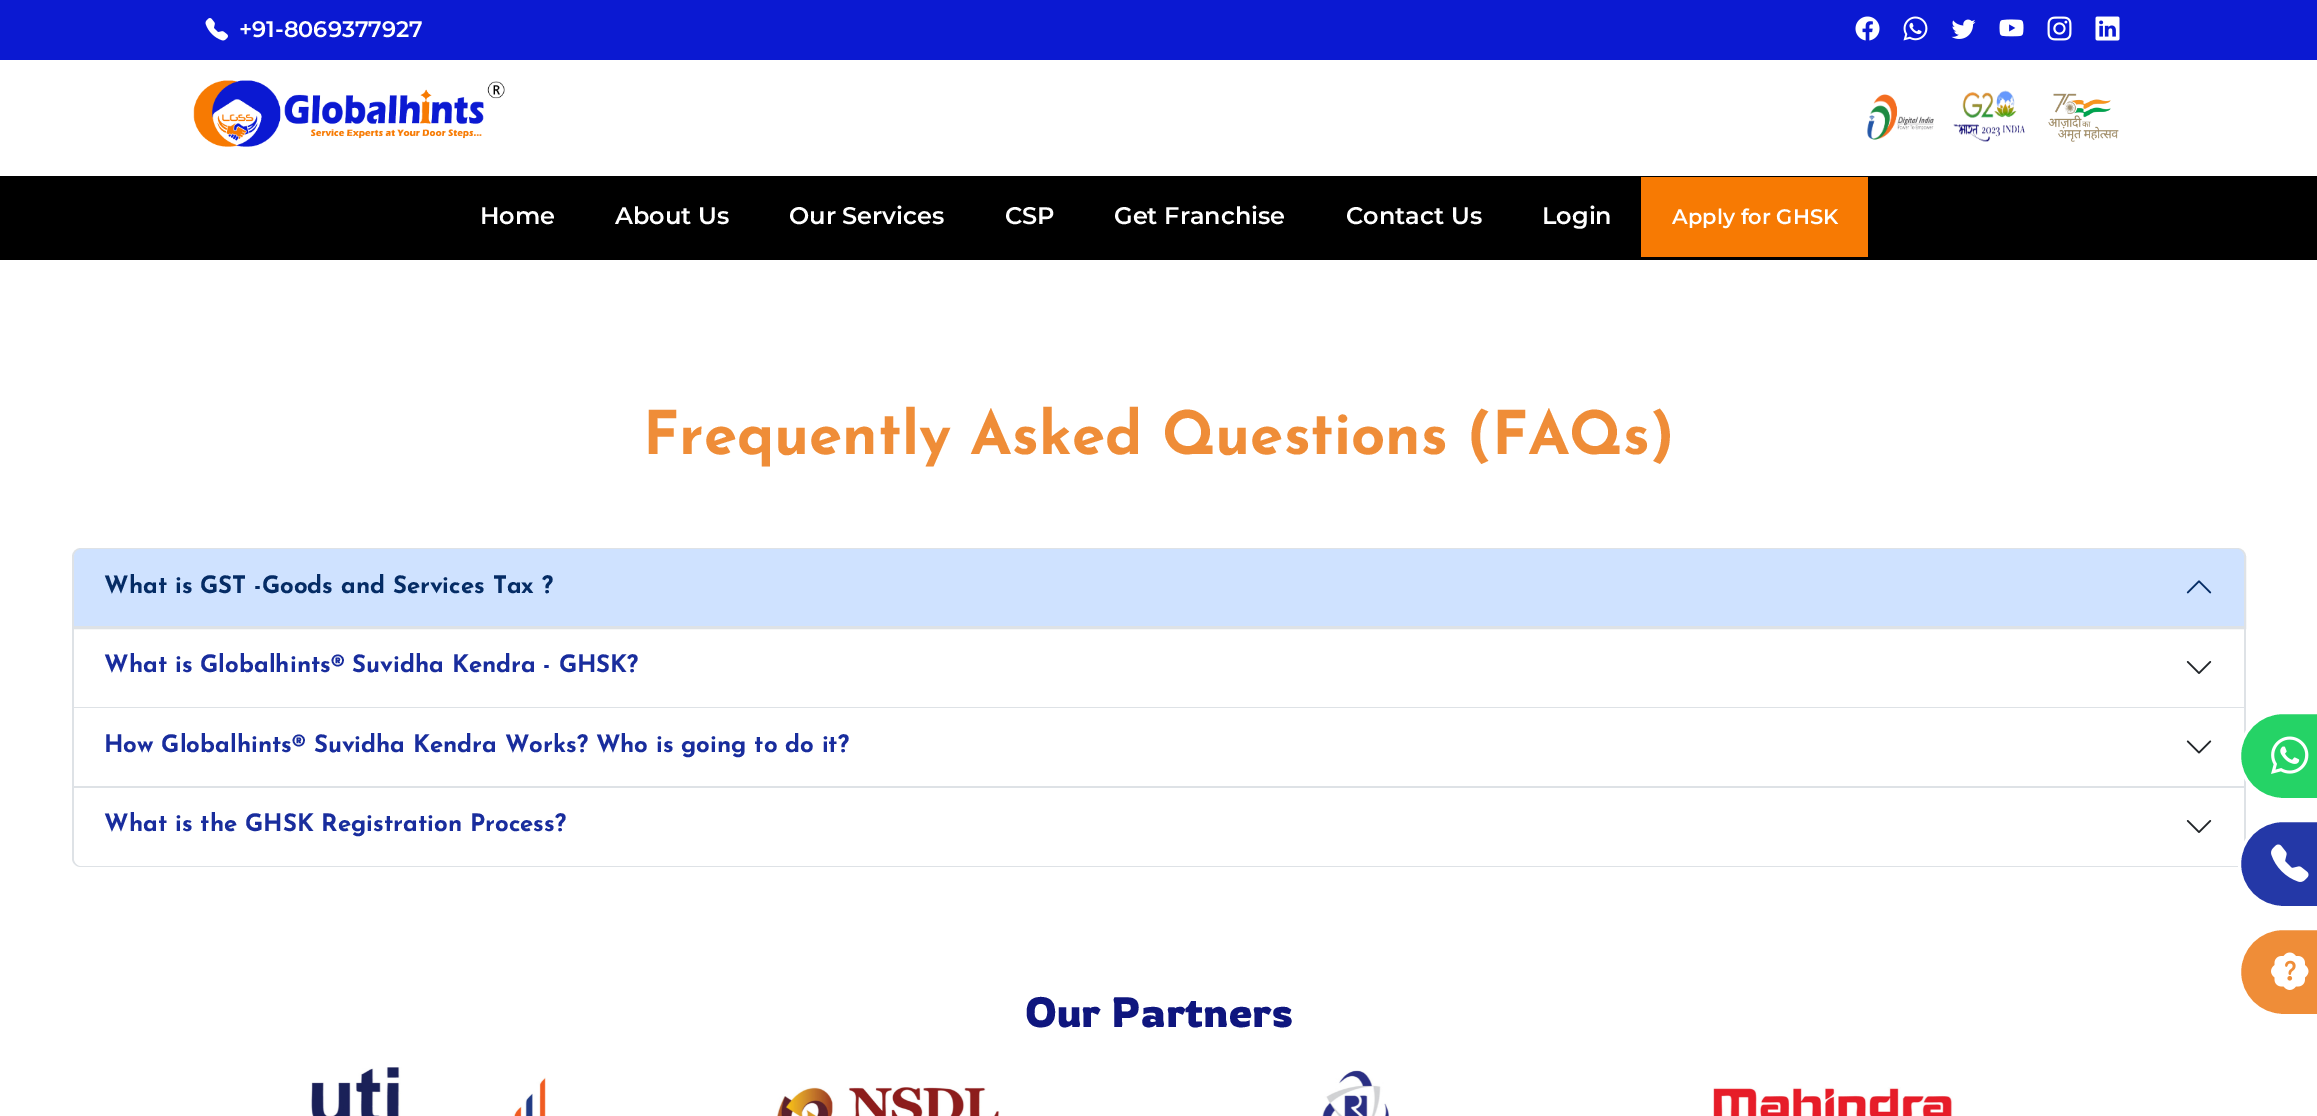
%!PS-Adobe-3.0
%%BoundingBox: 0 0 2317 1116
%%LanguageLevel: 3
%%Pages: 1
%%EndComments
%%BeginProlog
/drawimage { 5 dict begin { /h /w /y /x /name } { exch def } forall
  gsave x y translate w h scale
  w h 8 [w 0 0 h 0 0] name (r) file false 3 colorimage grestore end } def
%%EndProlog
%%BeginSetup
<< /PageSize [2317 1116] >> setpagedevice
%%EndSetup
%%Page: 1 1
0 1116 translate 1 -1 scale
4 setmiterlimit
1 setgray
0 0 2317 1116 rectfill
0.043 0.098 0.824 setrgbcolor
0 0 2317 60 rectfill
(images/1.raw) 205 18 23 23 drawimage
(images/2.raw) 1855 16 25 25 drawimage
(images/3.raw) 1903 16 25 25 drawimage
(images/4.raw) 1951 19 25 20 drawimage
(images/5.raw) 1999 19 25 18 drawimage
(images/6.raw) 2047 16 25 25 drawimage
(images/7.raw) 2095 16 25 25 drawimage
(images/8.raw) 193 80 312 67 drawimage
(images/9.raw) 1867 94 67 46 drawimage
(images/10.raw) 1953 90 72 52 drawimage
(images/11.raw) 2048 93 71 49 drawimage
0 setgray
0 176 2317 84 rectfill
0.969 0.478 0.012 setrgbcolor
1641 177 227 80 rectfill
0.871 0.886 0.902 setrgbcolor
2 setlinewidth
newpath 81 549 moveto 2237 549 lineto 2241.5 549 2245 552.5 2245 557 curveto 2245 628 lineto 73 628 lineto 73 557 lineto 73 552.5 76.5 549 81 549 curveto closepath stroke
0.812 0.886 1 setrgbcolor
newpath 82 549 moveto 2236 549 lineto 2240.5 549 2244 552.5 2244 557 curveto 2244 627 lineto 74 627 lineto 74 557 lineto 74 552.5 77.5 549 82 549 curveto closepath fill
0.871 0.886 0.902 setrgbcolor
74 626 2170 1 rectfill
(images/12.raw) 2186 580 26 14 drawimage
2244 629 2 159 rectfill
72 707 2174 1 rectfill
72 629 2 79 rectfill
(images/13.raw) 2186 661 26 13 drawimage
72 786 2174 2 rectfill
72 708 2 80 rectfill
(images/14.raw) 2186 740 26 14 drawimage
newpath 72 788 moveto 2246 788 lineto 2246 858 lineto 2246 863 2241 867 2236 867 curveto 81 867 lineto 76 867 72 863 72 858 curveto closepath 74 788 moveto 2244 788 lineto 2244 858 lineto 2244 862 2241 866 2236 866 curveto 81 866 lineto 77 866 74 862 74 858 curveto closepath eofill
1 setgray
newpath 74 788 moveto 2244 788 lineto 2244 858 lineto 2244 862.5 2240.5 866 2236 866 curveto 82 866 lineto 77.5 866 74 862.5 74 858 curveto closepath fill
(images/13.raw) 2186 820 26 13 drawimage
(images/15.raw) 310 1067 236 49 drawimage
(images/16.raw) 777 1087 223 29 drawimage
(images/17.raw) 1322 1070 68 46 drawimage
(images/18.raw) 1713 1087 240 29 drawimage
0.145 0.827 0.4 setrgbcolor
newpath 2283 712.5 moveto 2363.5 712.5 lineto 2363.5 799.5 lineto 2283 799.5 lineto 2259 799.5 2239.5 780 2239.5 756 curveto 2239.5 732 2259 712.5 2283 712.5 curveto closepath gsave fill grestore
1 setgray
3 setlinewidth
stroke
(images/19.raw) 2271 736 38 38 drawimage
0.141 0.22 0.655 setrgbcolor
newpath 2283 820.5 moveto 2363.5 820.5 lineto 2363.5 907.5 lineto 2283 907.5 lineto 2259 907.5 2239.5 888 2239.5 864 curveto 2239.5 840 2259 820.5 2283 820.5 curveto closepath gsave fill grestore
1 setgray
stroke
(images/20.raw) 2271 844 38 38 drawimage
0.937 0.553 0.22 setrgbcolor
newpath 2283 928.5 moveto 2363.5 928.5 lineto 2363.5 1015.5 lineto 2283 1015.5 lineto 2259 1015.5 2239.5 996 2239.5 972 curveto 2239.5 948 2259 928.5 2283 928.5 curveto closepath gsave fill grestore
1 setgray
stroke
(images/21.raw) 2271 952 38 38 drawimage
/Montserrat-SemiBold [22.5 0 0 -22.5 0 0] selectfont
239 37 moveto (+91-8069377927) show
/Montserrat-SemiBold [24 0 0 -24 0 0] selectfont
480 224 moveto (Home) show
615 224 moveto (About Us) show
789 224 moveto (Our Services) show
1005 224 moveto (CSP) show
1114 224 moveto (Get Franchise) show
1346 224 moveto (Contact Us) show
1542 224 moveto (Login) show
/Montserrat-SemiBold [21 0 0 -21 0 0] selectfont
1672 224 moveto (Apply for GHSK) show
/JosefinSans-Bold [60 0 0 -60 0 0] selectfont
0.937 0.553 0.22 setrgbcolor
643 454 moveto (Frequently Asked Questions \(FAQs\)) show
/JosefinSans-Bold [24 0 0 -24 0 0] selectfont
0.02 0.173 0.396 setrgbcolor
104 593 moveto (What is GST -Goods and Services Tax ?) show
0.098 0.176 0.616 setrgbcolor
104 672 moveto (What is Globalhints® Suvidha Kendra - GHSK?) show
104 752 moveto (How Globalhints® Suvidha Kendra Works? Who is going to do it?) show
104 831 moveto (What is the GHSK Registration Process?) show
/Rowdies-Regular [42 0 0 -42 0 0] selectfont
0.059 0.086 0.494 setrgbcolor
1025 1027 moveto (Our Partners) show
showpage
%%EOF
